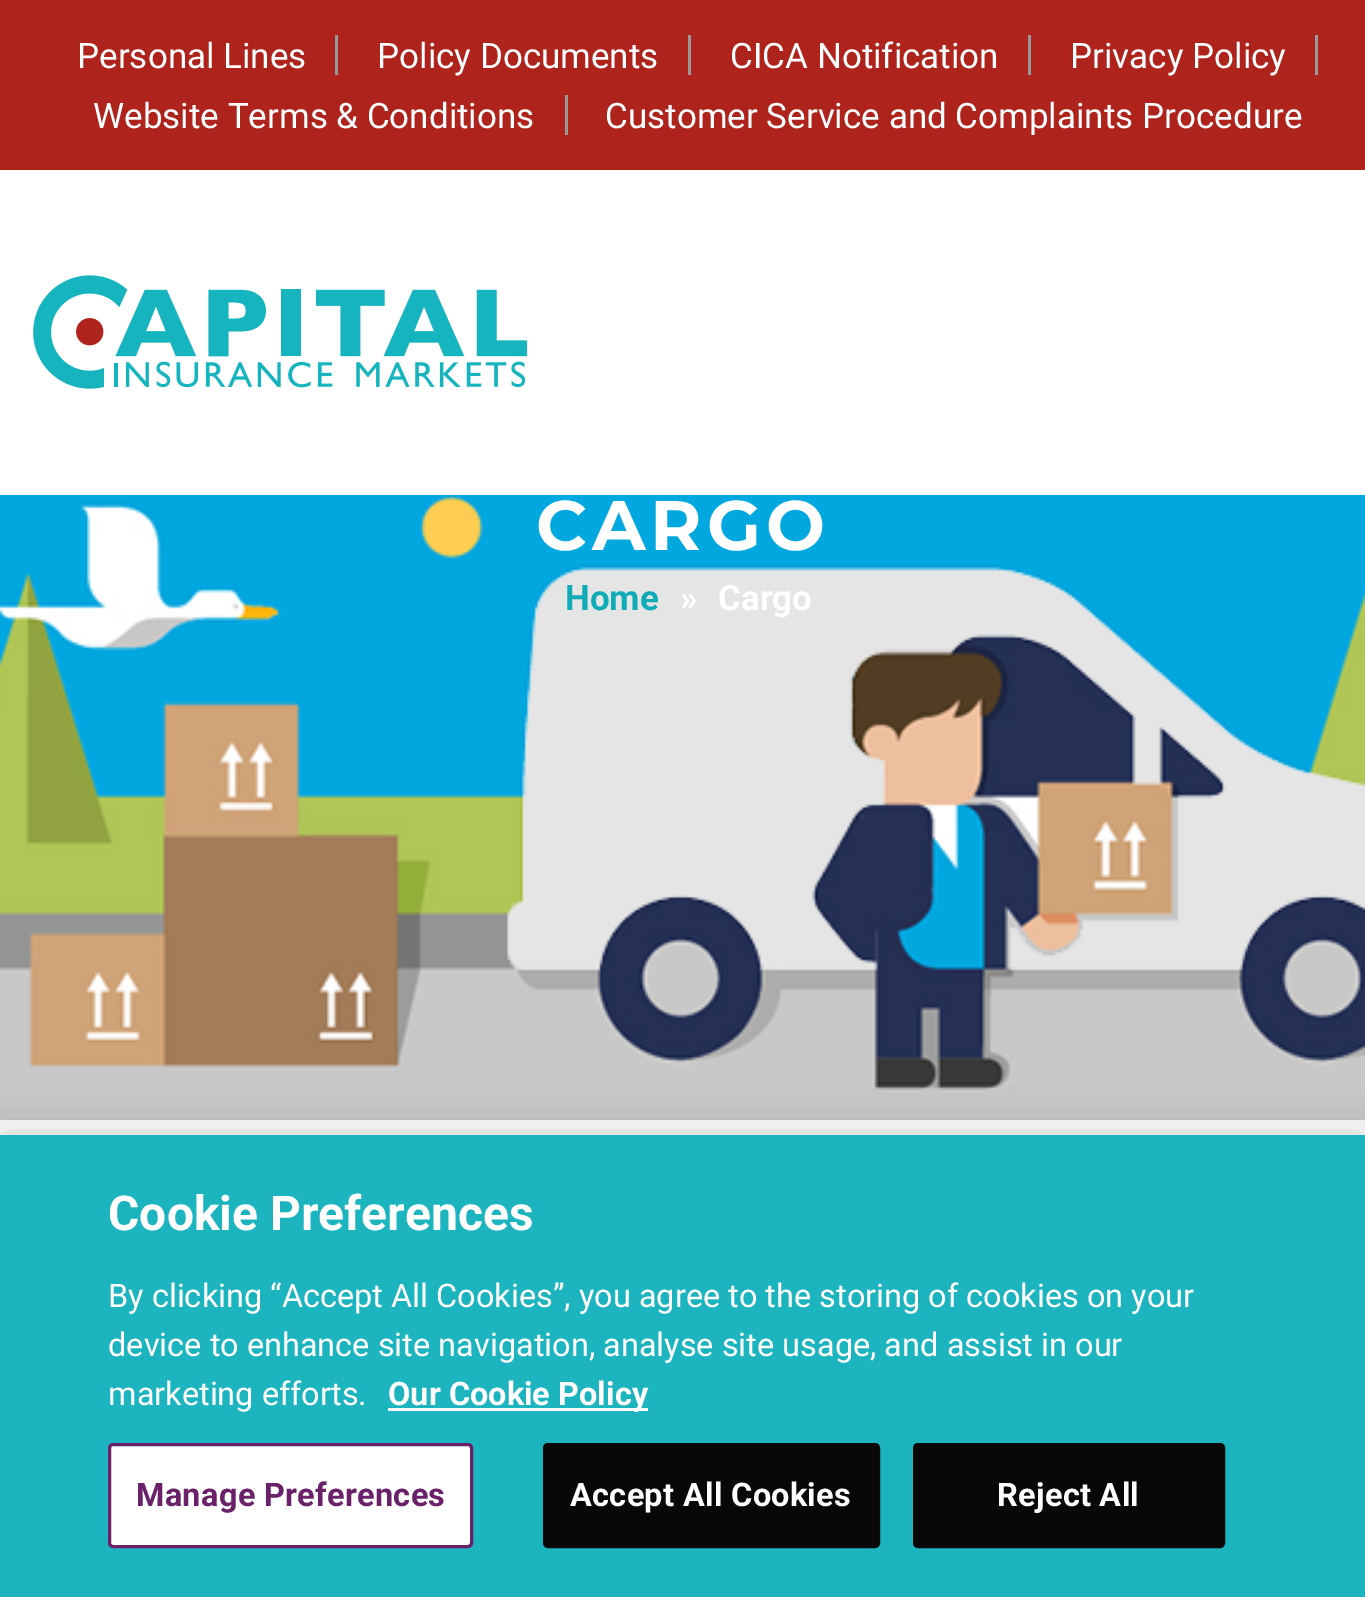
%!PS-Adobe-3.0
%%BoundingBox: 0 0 1365 1597
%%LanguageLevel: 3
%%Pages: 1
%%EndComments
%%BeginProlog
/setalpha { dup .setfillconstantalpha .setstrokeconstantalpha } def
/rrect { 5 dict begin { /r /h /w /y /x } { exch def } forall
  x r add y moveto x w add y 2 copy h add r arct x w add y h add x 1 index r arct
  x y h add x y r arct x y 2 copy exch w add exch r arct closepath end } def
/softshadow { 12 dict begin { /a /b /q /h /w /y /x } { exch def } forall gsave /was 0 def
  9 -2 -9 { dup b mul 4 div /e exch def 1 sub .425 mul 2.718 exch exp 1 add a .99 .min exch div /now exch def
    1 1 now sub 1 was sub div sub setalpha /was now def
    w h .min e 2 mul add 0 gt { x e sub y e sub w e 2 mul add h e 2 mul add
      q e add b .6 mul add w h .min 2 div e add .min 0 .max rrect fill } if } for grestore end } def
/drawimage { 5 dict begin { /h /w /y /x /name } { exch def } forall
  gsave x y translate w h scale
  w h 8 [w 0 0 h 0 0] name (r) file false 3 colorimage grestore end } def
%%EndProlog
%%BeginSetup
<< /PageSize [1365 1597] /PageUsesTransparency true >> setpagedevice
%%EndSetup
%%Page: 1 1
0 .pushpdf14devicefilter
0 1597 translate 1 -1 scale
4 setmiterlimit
1 setgray
0 0 1365 1597 rectfill
0.686 0.137 0.114 setrgbcolor
0 0 1365 170 rectfill
0.6 setgray
335 35 3 40 rectfill
688 35 3 40 rectfill
1028 35 3 40 rectfill
1315 35 3 40 rectfill
565 95 3 40 rectfill
(images/1.raw) 33 275 495 114 drawimage
(images/2.raw) 0 495 1365 625 drawimage
0 setgray
0 1135 1365 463 0 22.5 0.2 softshadow
0.11 0.706 0.745 setrgbcolor
0 1135 1365 462 rectfill
1 setgray
388 1408 260 3 rectfill
109.5 1444.5 362 102 3.5 rrect gsave fill grestore
0.42 0.129 0.412 setrgbcolor
3 setlinewidth
stroke
0.031 setgray
544.5 1444.5 334 102 3.5 rrect gsave fill grestore
stroke
914.5 1444.5 309 102 3.5 rrect gsave fill grestore
stroke
/Roboto-Regular [35 0 0 -35 0 0] selectfont
1 setgray
77 68 moveto (Personal Lines) show
377 68 moveto (Policy Documents) show
730 68 moveto (CICA Notification) show
1070 68 moveto (Privacy Policy) show
93 128 moveto (Website Terms & Conditions) show
605 128 moveto (Customer Service and Complaints Procedure) show
/Montserrat-Bold [70 0 0 -70 0 0] selectfont
536 550 moveto 5 0 (CARGO) ashow
/Roboto-Bold [35 0 0 -35 0 0] selectfont
0.059 0.675 0.722 setrgbcolor
565 610 moveto (Home) show
1 setgray
680 610 moveto (») show
718 610 moveto (Cargo) show
/Roboto-Bold [48 0 0 -48 0 0] selectfont
108 1230 moveto (Cookie Preferences) show
/Roboto-Regular [32.5 0 0 -32.5 0 0] selectfont
108 1307 moveto (By clicking “Accept All Cookies”, you agree to the storing of cookies on your) show
108 1356 moveto (device to enhance site navigation, analyse site usage, and assist in our) show
108 1405 moveto (marketing efforts.) show
/Roboto-Bold [32.5 0 0 -32.5 0 0] selectfont
388 1405 moveto (Our Cookie Policy) show
0.42 0.129 0.412 setrgbcolor
136 1506 moveto 0.3 0 (Manage Preferences) ashow
1 setgray
570 1506 moveto 0.3 0 (Accept All Cookies) ashow
997 1506 moveto 0.3 0 (Reject All) ashow
.poppdf14devicefilter showpage
%%EOF
